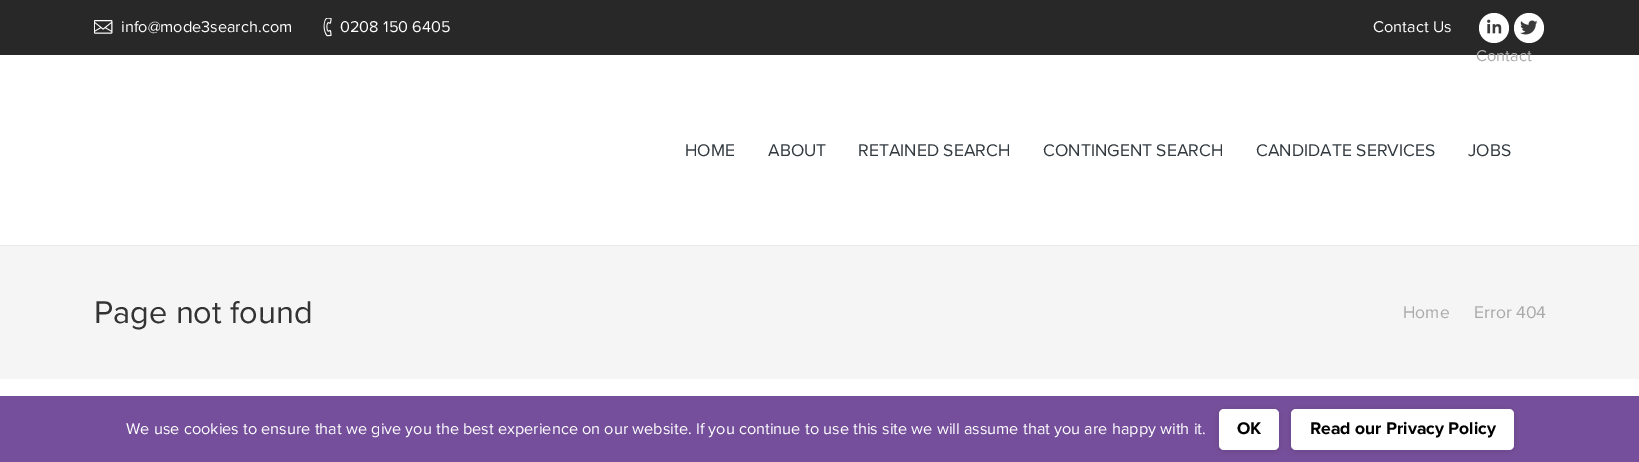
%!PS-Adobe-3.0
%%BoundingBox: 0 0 1639 462
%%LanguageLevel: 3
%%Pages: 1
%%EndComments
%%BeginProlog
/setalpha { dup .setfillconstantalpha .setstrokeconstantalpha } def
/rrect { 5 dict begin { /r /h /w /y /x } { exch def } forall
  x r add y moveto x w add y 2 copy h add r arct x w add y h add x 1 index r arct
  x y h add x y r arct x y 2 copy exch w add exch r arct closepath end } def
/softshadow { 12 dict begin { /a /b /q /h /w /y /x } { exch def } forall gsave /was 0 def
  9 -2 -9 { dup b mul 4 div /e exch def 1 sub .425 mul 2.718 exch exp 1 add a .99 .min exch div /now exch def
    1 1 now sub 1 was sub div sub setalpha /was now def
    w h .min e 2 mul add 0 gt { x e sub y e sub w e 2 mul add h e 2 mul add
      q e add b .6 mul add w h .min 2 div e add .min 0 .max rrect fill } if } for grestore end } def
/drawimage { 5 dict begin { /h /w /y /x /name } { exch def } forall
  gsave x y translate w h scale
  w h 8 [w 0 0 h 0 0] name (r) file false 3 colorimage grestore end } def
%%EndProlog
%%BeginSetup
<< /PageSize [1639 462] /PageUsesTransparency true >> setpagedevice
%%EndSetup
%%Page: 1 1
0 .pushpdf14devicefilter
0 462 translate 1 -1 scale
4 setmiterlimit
1 setgray
0 0 1639 462 rectfill
0.914 setgray
0 245 1639 1 rectfill
0.157 setgray
0 0 1639 55 rectfill
(images/1.raw) 94 20 19 14 drawimage
(images/2.raw) 323 18 9 19 drawimage
1 setgray
newpath 1494 28 15 0 360 arc closepath fill
(images/3.raw) 1487 19 15 15 drawimage
newpath 1529 28 15 0 360 arc closepath fill
(images/4.raw) 1520 20 18 15 drawimage
0.961 setgray
0 246 1639 133 rectfill
0.459 0.31 0.612 setrgbcolor
0 396 1639 66 rectfill
0 setgray
1219 410 60 41 5 4 0.12 softshadow
1 setgray
1219 409 60 41 5 rrect fill
0 setgray
1291 410 223 41 5 4 0.12 softshadow
1 setgray
1291 409 223 41 5 rrect fill
/ProximaNova-Regular [16.25 0 0 -16.25 0 0] selectfont
121 32 moveto (info@mode3search.com) show
340 32 moveto (0208 150 6405) show
1373 32 moveto (Contact Us) show
0.667 setgray
1476 61 moveto (Contact) show
/ProximaNova-Regular [17.5 0 0 -17.5 0 0] selectfont
0.192 0.224 0.247 setrgbcolor
685 156 moveto (HOME) show
768 156 moveto (ABOUT) show
858 156 moveto (RETAINED SEARCH) show
1043 156 moveto (CONTINGENT SEARCH) show
1256 156 moveto (CANDIDATE SERVICES) show
1468 156 moveto (JOBS) show
/ProximaNova-Regular [32.5 0 0 -32.5 0 0] selectfont
0.2 setgray
94 323 moveto (Page not found) show
/ProximaNova-Regular [17.5 0 0 -17.5 0 0] selectfont
0.667 setgray
1403 318 moveto (Home) show
1474 318 moveto (Error 404) show
/ProximaNova-Regular [16.25 0 0 -16.25 0 0] selectfont
1 setgray
126 434 moveto (We use cookies to ensure that we give you the best experience on our website. If you continue to use this site we will assume that you are happy with it.) show
/ProximaNova-Bold [17.5 0 0 -17.5 0 0] selectfont
0 setgray
1237 434 moveto (OK) show
1310 434 moveto (Read our Privacy Policy) show
.poppdf14devicefilter showpage
%%EOF
